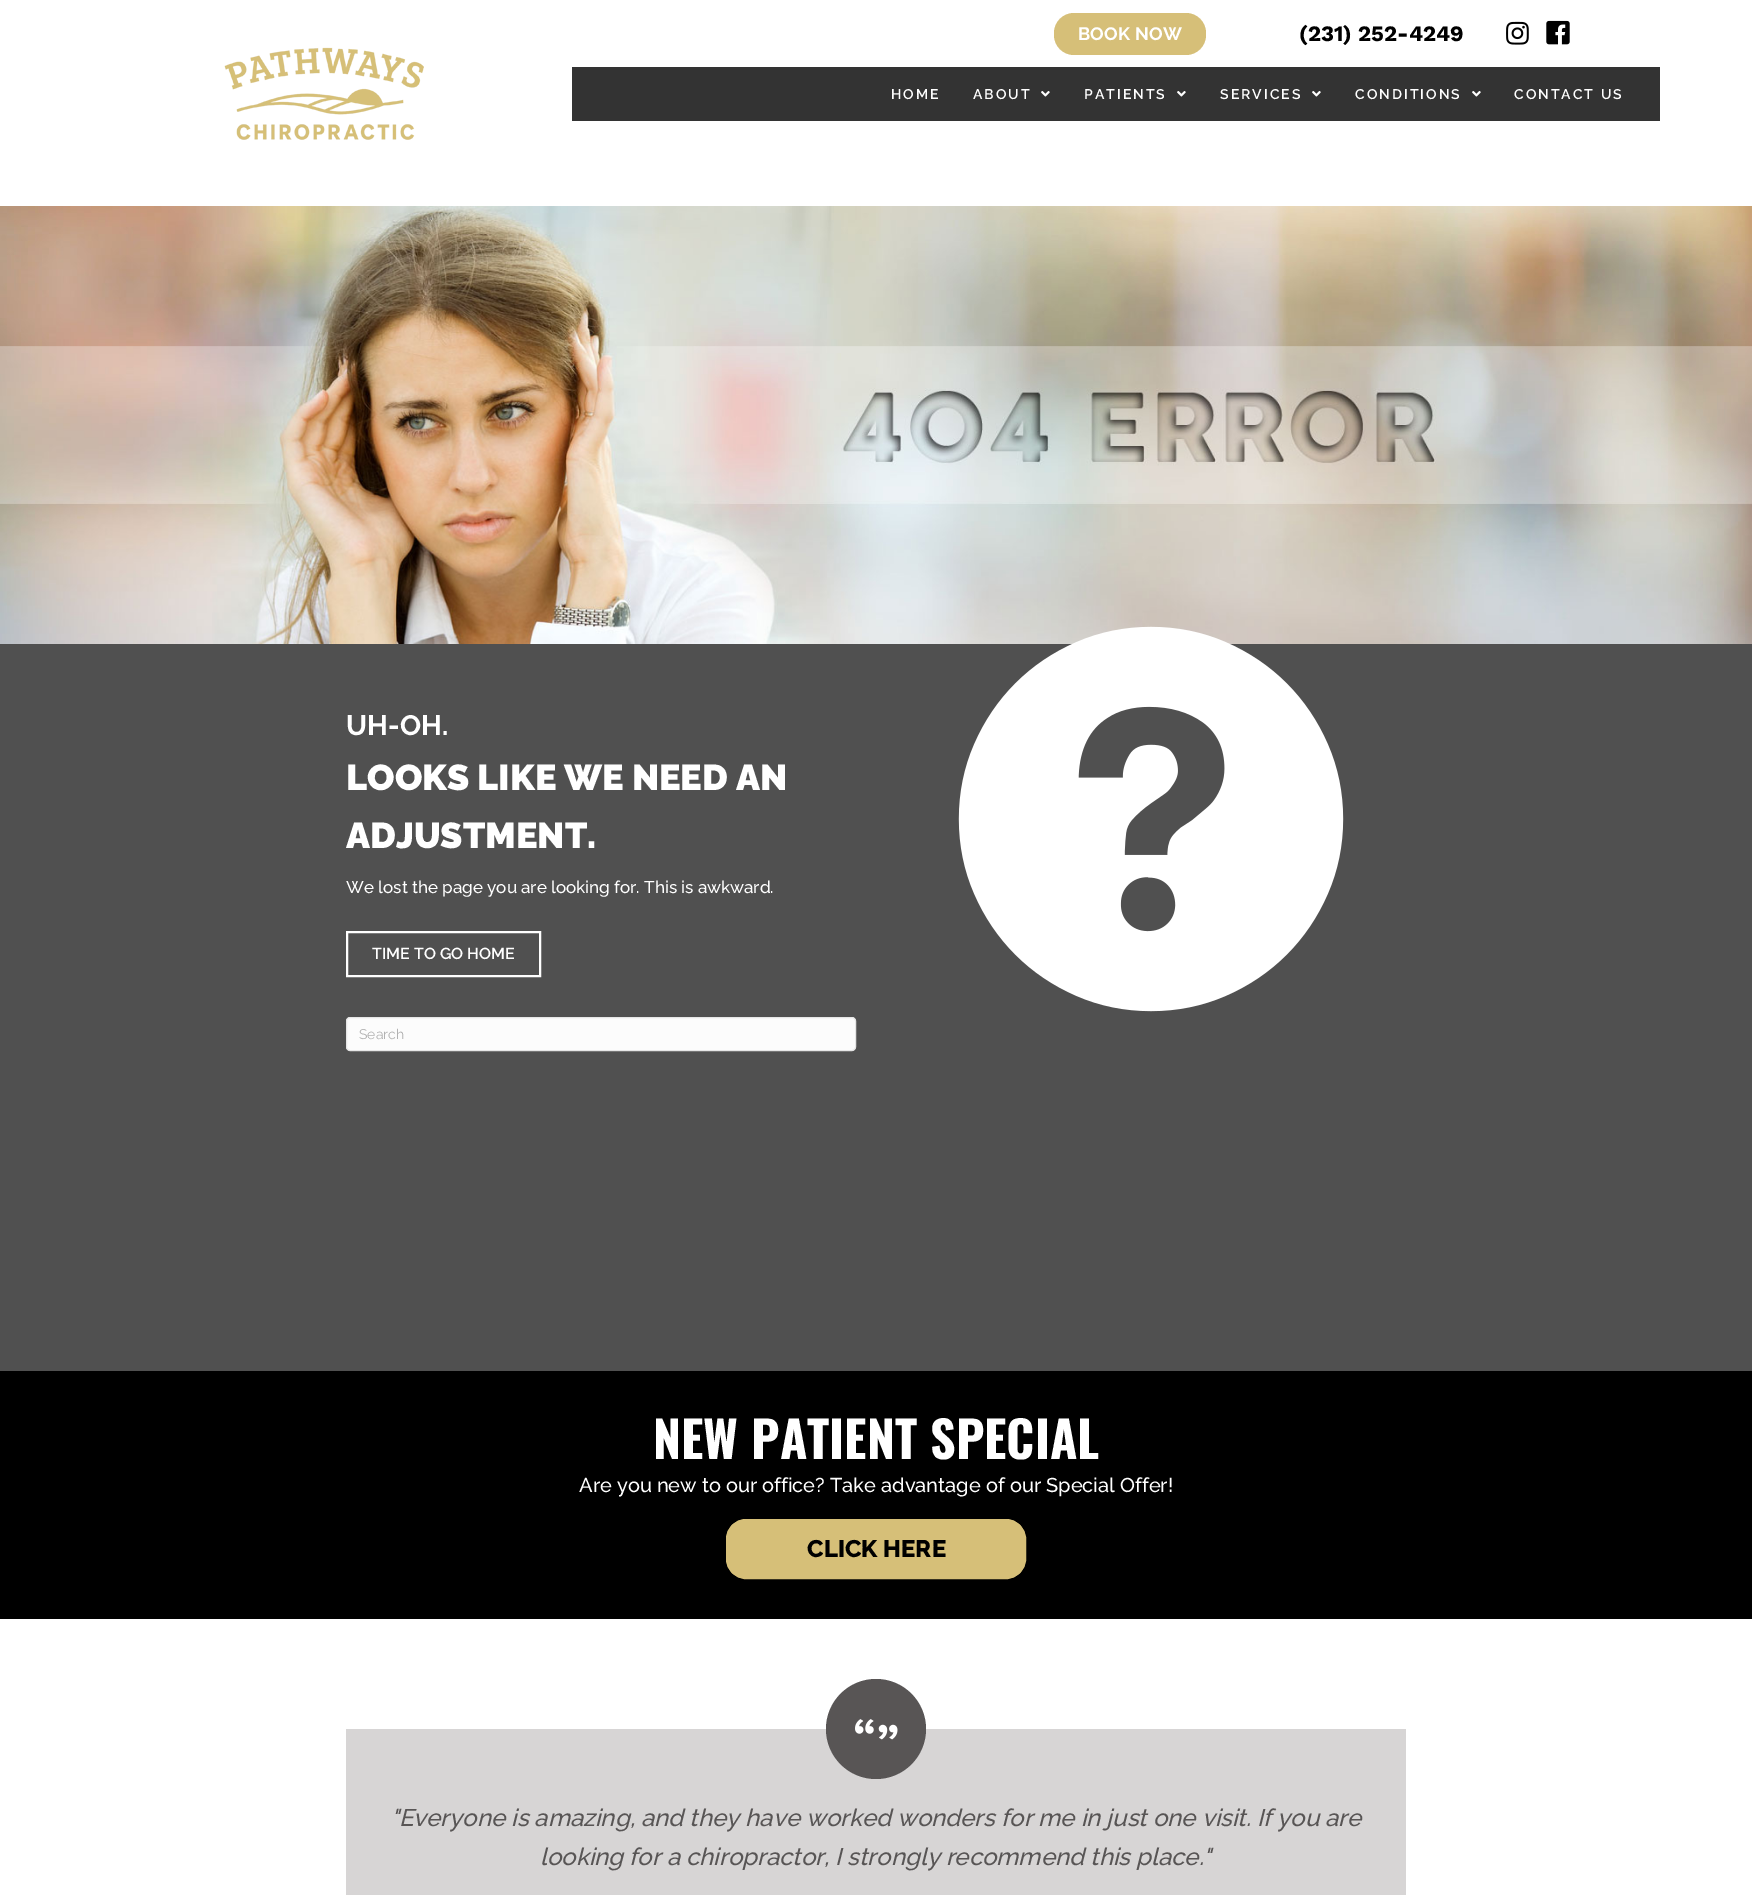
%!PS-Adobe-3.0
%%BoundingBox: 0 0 1752 1895
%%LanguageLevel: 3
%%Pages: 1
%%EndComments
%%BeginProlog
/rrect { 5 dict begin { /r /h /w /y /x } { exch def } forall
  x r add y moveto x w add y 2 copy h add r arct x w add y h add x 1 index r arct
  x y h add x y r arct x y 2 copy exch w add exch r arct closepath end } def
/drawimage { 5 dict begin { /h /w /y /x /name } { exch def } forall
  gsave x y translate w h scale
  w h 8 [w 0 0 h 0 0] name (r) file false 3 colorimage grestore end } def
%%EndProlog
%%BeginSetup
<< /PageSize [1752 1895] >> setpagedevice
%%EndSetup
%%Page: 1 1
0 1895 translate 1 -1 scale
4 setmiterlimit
1 setgray
0 0 1752 1895 rectfill
0.839 0.749 0.471 setrgbcolor
1054 13 152 42 20 rrect fill
(images/1.raw) 1506 21 23 24 drawimage
(images/2.raw) 1546 20 24 25 drawimage
(images/3.raw) 224 47 200 93 drawimage
0.2 setgray
572 67 1088 54 rectfill
(images/4.raw) 1041 91 9 6 drawimage
(images/4.raw) 1177 91 9 6 drawimage
(images/4.raw) 1312 91 9 6 drawimage
(images/4.raw) 1472 91 9 6 drawimage
(images/5.raw) 0 206 1752 438 drawimage
0.314 setgray
0 644 1752 727 rectfill
1 setgray
2 setlinewidth
347 932 193 44 rectstroke
0.988 setgray
346.5 1017.5 509 33 3.5 rrect gsave fill grestore
0.902 setgray
1 setlinewidth
stroke
(images/6.raw) 958 626 386 386 drawimage
0 setgray
0 1371 1752 248 rectfill
0.839 0.749 0.471 setrgbcolor
726.5 1519.5 299 59 19.5 rrect gsave fill grestore
stroke
0.843 0.835 0.835 setrgbcolor
346 1729 1060 166 rectfill
0.345 0.333 0.333 setrgbcolor
newpath 876 1729 50 0 360 arc closepath fill
(images/7.raw) 855 1719 43 21 drawimage
/Raleway-Bold [18 0 0 -18 0 0] selectfont
1 setgray
1078 40 moveto 0.25 0 (BOOK NOW) ashow
/WorkSans-Bold [22 0 0 -22 0 0] selectfont
0 setgray
1299 41 moveto (\(231\) 252-4249) show
/Raleway-SemiBold [14 0 0 -14 0 0] selectfont
1 setgray
891 99 moveto 2 0 (HOME) ashow
973 99 moveto 2 0 (ABOUT) ashow
1084 99 moveto 2 0 (PATIENTS) ashow
1220 99 moveto 2 0 (SERVICES) ashow
1355 99 moveto 2 0 (CONDITIONS) ashow
1514 99 moveto 2 0 (CONTACT US) ashow
/Raleway-Bold [28 0 0 -28 0 0] selectfont
346 735 moveto (UH-OH.) show
/Raleway-Black [36 0 0 -36 0 0] selectfont
346 790 moveto (LOOKS LIKE WE NEED AN) show
346 848 moveto (ADJUSTMENT.) show
/Raleway-Medium [17 0 0 -17 0 0] selectfont
346 893 moveto (We lost the page you are looking for. This is awkward.) show
/Raleway-SemiBold [16 0 0 -16 0 0] selectfont
372 959 moveto (TIME TO GO HOME) show
/Raleway-Regular [14 0 0 -14 0 0] selectfont
0.698 setgray
359 1039 moveto (Search) show
/Oswald-Bold [50 0 0 -50 0 0] selectfont
1 setgray
653 1459 moveto (NEW PATIENT SPECIAL) show
/Raleway-Medium [20 0 0 -20 0 0] selectfont
579 1492 moveto (Are you new to our office? Take advantage of our Special Offer!) show
/Raleway-ExtraBold [24 0 0 -24 0 0] selectfont
0 setgray
807 1557 moveto (CLICK HERE) show
/Raleway-MediumItalic [24 0 0 -24 0 0] selectfont
0.345 0.333 0.333 setrgbcolor
391 1826 moveto ("Everyone is amazing, and they have worked wonders for me in just one visit. If you are) show
540 1865 moveto (looking for a chiropractor, I strongly recommend this place.") show
showpage
%%EOF
